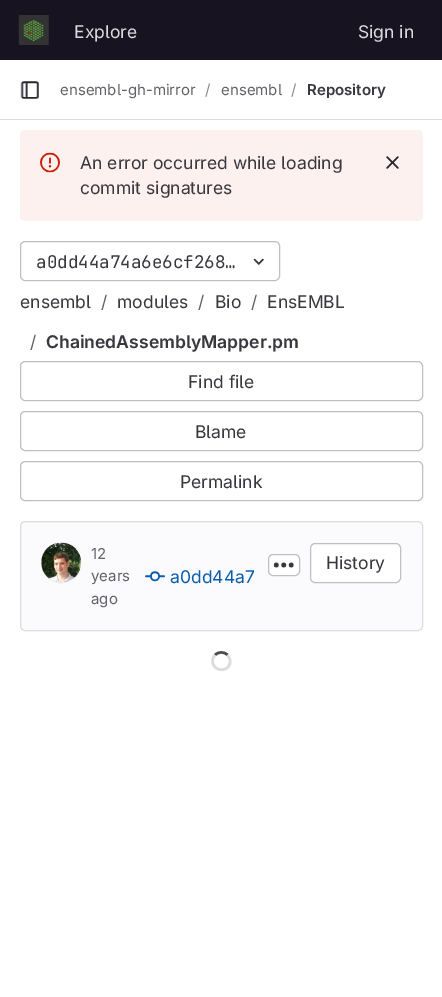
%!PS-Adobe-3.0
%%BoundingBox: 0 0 442 997
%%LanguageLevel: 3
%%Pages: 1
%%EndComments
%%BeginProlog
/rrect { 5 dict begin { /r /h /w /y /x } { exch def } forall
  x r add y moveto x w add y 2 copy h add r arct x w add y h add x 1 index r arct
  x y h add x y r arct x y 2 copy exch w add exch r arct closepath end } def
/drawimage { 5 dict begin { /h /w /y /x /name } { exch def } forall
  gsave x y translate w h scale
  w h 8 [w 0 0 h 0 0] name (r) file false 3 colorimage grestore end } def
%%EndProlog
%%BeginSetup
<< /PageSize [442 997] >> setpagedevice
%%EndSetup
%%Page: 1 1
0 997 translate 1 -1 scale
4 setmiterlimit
1 setgray
0 0 442 997 rectfill
0.09 0.075 0.129 setrgbcolor
0 0 442 60 rectfill
(images/1.raw) 18 15 31 30 drawimage
0.863 0.863 0.871 setrgbcolor
0 119 442 1 rectfill
(images/2.raw) 20 81 19 18 drawimage
0.988 0.945 0.937 setrgbcolor
20 130 403 91 5 rrect fill
(images/3.raw) 40 152 20 21 drawimage
(images/4.raw) 386 156 13 13 drawimage
0.749 0.749 0.765 setrgbcolor
20.5 241.5 259 39 4.5 rrect stroke
(images/5.raw) 253 258 11 7 drawimage
20.5 361.5 402 39 4.5 rrect stroke
20.5 411.5 402 39 4.5 rrect stroke
20.5 461.5 402 39 4.5 rrect stroke
0.984 0.98 0.992 setrgbcolor
20.5 521.5 402 109 4.5 rrect gsave fill grestore
0.863 0.863 0.871 setrgbcolor
stroke
0.906 0.902 0.914 setrgbcolor
newpath 61 563 19.5 0 360 arc closepath stroke
(images/6.raw) 41 542 40 41 drawimage
(images/7.raw) 145 571 20 11 drawimage
1 setgray
268.5 554.5 31 21 4.5 rrect gsave fill grestore
0.749 0.749 0.765 setrgbcolor
stroke
(images/8.raw) 273 562 21 6 drawimage
1 setgray
310.5 543.5 90 39 4.5 rrect gsave fill grestore
0.749 0.749 0.765 setrgbcolor
stroke
0.298 0.294 0.318 setrgbcolor
2.5 setlinewidth
newpath 215 655 moveto 218.5 651.5 224 651.5 227.5 655 curveto stroke
0.863 0.863 0.871 setrgbcolor
newpath 227.5 655 moveto 229.5 657 230.5 660 230 663 curveto 228 673 212.5 671.5 212.5 661 curveto 212.5 659 213.5 656.5 215 655 curveto stroke
/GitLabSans-Regular [17.5 0 0 -17.5 0 0] selectfont
74 38 moveto (Explore) show
358 38 moveto (Sign in) show
/GitLabSans-Regular [15 0 0 -15 0 0] selectfont
0.384 0.38 0.408 setrgbcolor
60 95 moveto (ensembl-gh-mirror) show
0.537 0.533 0.553 setrgbcolor
205 95 moveto (/) show
0.384 0.38 0.408 setrgbcolor
221 95 moveto (ensembl) show
0.537 0.533 0.553 setrgbcolor
291 95 moveto (/) show
/GitLabSans-SemiBold [15 0 0 -15 0 0] selectfont
0.227 0.22 0.247 setrgbcolor
307 95 moveto (Repository) show
/GitLabSans-Regular [17.5 0 0 -17.5 0 0] selectfont
80 169 moveto (An error occurred while loading) show
80 194 moveto (commit signatures) show
/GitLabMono-Regular [17.5 0 0 -17.5 0 0] selectfont
36 268 moveto (a0dd44a74a6e6cf268…) show
/GitLabSans-Regular [17.5 0 0 -17.5 0 0] selectfont
20 308 moveto (ensembl) show
0.384 0.38 0.408 setrgbcolor
101 308 moveto (/) show
0.227 0.22 0.247 setrgbcolor
117 308 moveto (modules) show
0.384 0.38 0.408 setrgbcolor
198 308 moveto (/) show
0.227 0.22 0.247 setrgbcolor
215 308 moveto (Bio) show
0.384 0.38 0.408 setrgbcolor
251 308 moveto (/) show
0.227 0.22 0.247 setrgbcolor
267 308 moveto (EnsEMBL) show
0.384 0.38 0.408 setrgbcolor
30 348 moveto (/) show
/GitLabSans-SemiBold [17.5 0 0 -17.5 0 0] selectfont
0.227 0.22 0.247 setrgbcolor
46 348 moveto (ChainedAssemblyMapper.pm) show
/GitLabSans-Regular [17.5 0 0 -17.5 0 0] selectfont
188 388 moveto (Find file) show
195 438 moveto (Blame) show
180 488 moveto (Permalink) show
/GitLabSans-Regular [15 0 0 -15 0 0] selectfont
0.384 0.38 0.408 setrgbcolor
91 559 moveto (12) show
91 581 moveto (years) show
91 604 moveto (ago) show
/GitLabSans-Regular [17.5 0 0 -17.5 0 0] selectfont
0.043 0.361 0.678 setrgbcolor
170 583 moveto (a0dd44a7) show
0.227 0.22 0.247 setrgbcolor
326 569 moveto (History) show
showpage
%%EOF
